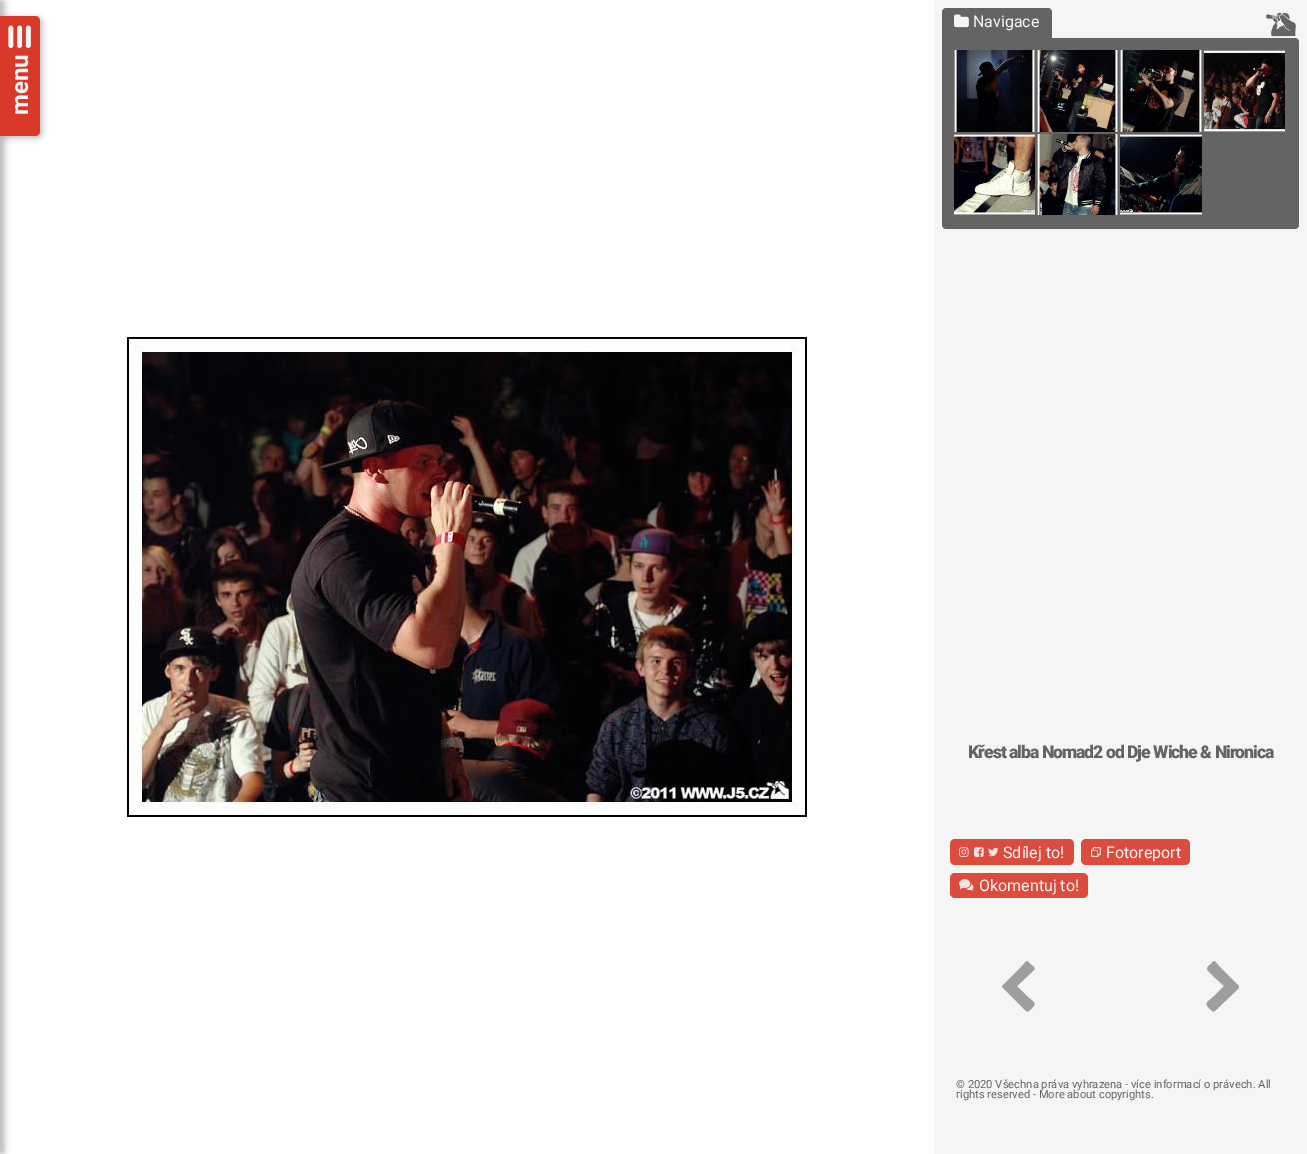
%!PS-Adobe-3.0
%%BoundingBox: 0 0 1307 1154
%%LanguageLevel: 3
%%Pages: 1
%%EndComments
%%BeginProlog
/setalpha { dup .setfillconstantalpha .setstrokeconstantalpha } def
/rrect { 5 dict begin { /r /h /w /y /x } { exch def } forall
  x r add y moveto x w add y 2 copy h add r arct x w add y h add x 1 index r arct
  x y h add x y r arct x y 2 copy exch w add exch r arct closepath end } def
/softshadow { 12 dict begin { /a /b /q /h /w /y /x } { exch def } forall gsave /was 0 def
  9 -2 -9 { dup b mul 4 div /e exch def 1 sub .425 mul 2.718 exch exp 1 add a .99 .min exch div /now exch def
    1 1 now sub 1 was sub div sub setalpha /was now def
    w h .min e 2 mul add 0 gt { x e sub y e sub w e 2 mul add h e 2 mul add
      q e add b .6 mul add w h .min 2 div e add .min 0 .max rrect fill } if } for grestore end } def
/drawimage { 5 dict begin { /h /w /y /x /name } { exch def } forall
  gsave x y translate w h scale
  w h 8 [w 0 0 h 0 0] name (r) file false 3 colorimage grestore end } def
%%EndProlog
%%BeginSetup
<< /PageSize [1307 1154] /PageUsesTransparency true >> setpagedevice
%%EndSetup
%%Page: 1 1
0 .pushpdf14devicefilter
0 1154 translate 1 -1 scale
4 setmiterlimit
1 setgray
0 0 1307 1154 rectfill
0 setgray
-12 0 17 1154 3 3 0.25 softshadow
2 18 40 120 5 3 0.25 softshadow
0.847 0.224 0.157 setrgbcolor
newpath 0 16 moveto 35 16 lineto 38 16 40 18 40 21 curveto 40 131 lineto 40 134 38 136 35 136 curveto 0 136 lineto closepath fill
(images/1.raw) 8 25 23 23 drawimage
(images/2.raw) 127 337 680 480 drawimage
0.961 setgray
934 0 373 1154 rectfill
0.392 setgray
newpath 946 8 moveto 1048 8 lineto 1050 8 1052 10 1052 12 curveto 1052 38 lineto 942 38 lineto 942 12 lineto 942 10 944 8 946 8 curveto closepath fill
(images/3.raw) 954 14 15 14 drawimage
(images/4.raw) 1266 12 30 25 drawimage
newpath 942 38 moveto 1295 38 lineto 1297 38 1299 40 1299 42 curveto 1299 225 lineto 1299 227 1297 229 1295 229 curveto 946 229 lineto 944 229 942 227 942 225 curveto closepath fill
(images/5.raw) 954 50 81 82 drawimage
(images/6.raw) 1037 50 81 82 drawimage
(images/7.raw) 1120 50 82 82 drawimage
(images/8.raw) 1204 50 81 82 drawimage
(images/9.raw) 954 134 81 81 drawimage
(images/10.raw) 1037 134 81 81 drawimage
(images/11.raw) 1120 134 82 81 drawimage
0.859 0.298 0.239 setrgbcolor
950 839 124 26 5 rrect fill
(images/12.raw) 959 847 10 10 drawimage
(images/13.raw) 974 847 10 10 drawimage
(images/14.raw) 988 847 11 10 drawimage
1081 839 109 26 5 rrect fill
(images/15.raw) 1091 847 10 11 drawimage
950 873 138 25 5 rrect fill
(images/16.raw) 959 879 15 12 drawimage
0.62 setgray
newpath 1034 970 moveto 1017 986 lineto 1028 997 lineto 1032 1001 1037 1003 1033 1007 curveto 1027 1013 1028 1013 1022 1007 curveto 1002 987 lineto 1002 986 lineto 1022 966 lineto 1027 961 1026 959 1030 964 curveto 1032 965 1036 968 1034 970 curveto closepath fill
newpath 1239 988 moveto 1219 1007 lineto 1213 1013 1214 1013 1208 1007 curveto 1204 1003 1209 1001 1213 997 curveto 1224 986 lineto 1222 984 1207 971 1207 969 curveto 1207 967 1209 965 1211 964 curveto 1215 959 1214 961 1219 966 curveto 1239 986 lineto closepath fill
/Roboto-Bold [24 0 0 -24 0 0] selectfont
0.961 setgray
gsave 28 115 translate -90 rotate 0 0 moveto (menu) show grestore
/Roboto-Regular [16 0 0 -16 0 0] selectfont
973 27 moveto (Navigace) show
/Roboto-Black [17.6 0 0 -17.6 0 0] selectfont
0.392 setgray
968 758 moveto -1 0 (Křest alba Nomad2 od Dje Wiche & Nironica) ashow
/Roboto-Regular [16 0 0 -16 0 0] selectfont
0.961 setgray
1003 858 moveto (Sdílej to!) show
1106 858 moveto (Fotoreport) show
979 891 moveto (Okomentuj to!) show
/Roboto-Regular [11.2 0 0 -11.2 0 0] selectfont
0.392 setgray
956 1088 moveto (© 2020 Všechna práva vyhrazena - více informací o právech. All) show
956 1098 moveto (rights reserved - More about copyrights.) show
.poppdf14devicefilter showpage
%%EOF
